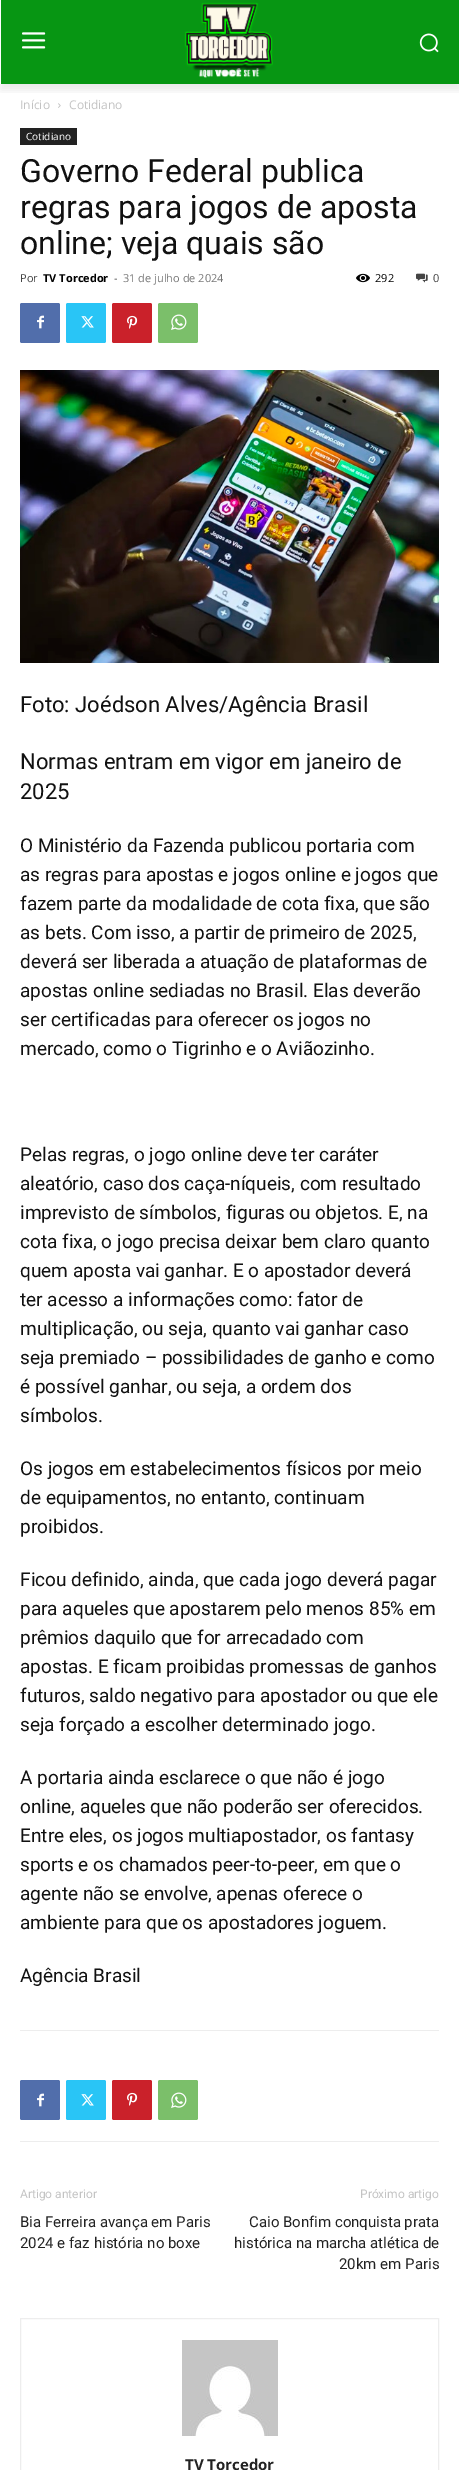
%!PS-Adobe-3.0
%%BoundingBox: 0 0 459 2470
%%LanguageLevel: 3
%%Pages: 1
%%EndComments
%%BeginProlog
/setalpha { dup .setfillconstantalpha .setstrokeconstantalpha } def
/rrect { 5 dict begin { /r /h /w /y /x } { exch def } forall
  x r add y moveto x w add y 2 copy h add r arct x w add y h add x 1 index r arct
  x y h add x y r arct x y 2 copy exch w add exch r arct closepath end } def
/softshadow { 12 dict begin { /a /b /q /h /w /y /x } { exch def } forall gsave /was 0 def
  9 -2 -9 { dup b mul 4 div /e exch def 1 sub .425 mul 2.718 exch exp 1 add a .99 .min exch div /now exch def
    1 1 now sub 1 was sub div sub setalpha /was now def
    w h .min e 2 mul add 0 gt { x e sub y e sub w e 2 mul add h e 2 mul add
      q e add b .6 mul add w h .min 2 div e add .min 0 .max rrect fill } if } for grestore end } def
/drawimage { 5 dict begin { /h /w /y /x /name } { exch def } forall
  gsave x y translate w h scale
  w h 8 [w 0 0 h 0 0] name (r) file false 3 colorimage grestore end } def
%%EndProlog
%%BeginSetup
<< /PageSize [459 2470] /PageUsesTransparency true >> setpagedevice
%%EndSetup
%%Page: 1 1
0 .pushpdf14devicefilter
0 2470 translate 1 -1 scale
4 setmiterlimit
1 setgray
0 0 459 2470 rectfill
0.027 0.588 0.075 setrgbcolor
1 0 458 84 rectfill
(images/1.raw) 22 32 24 17 drawimage
(images/2.raw) 184 2 89 76 drawimage
(images/3.raw) 419 33 20 20 drawimage
gsave
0 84 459 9 rectclip
0 setgray
1 6 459 84 0 4 0.08 softshadow
grestore
(images/4.raw) 58 103 3 5 drawimage
0.133 setgray
20 128 57 17 rectfill
(images/5.raw) 356 273 14 10 drawimage
(images/6.raw) 416 273 12 10 drawimage
0.318 0.431 0.671 setrgbcolor
20 303 40 40 2 rrect fill
(images/7.raw) 37 315 7 14 drawimage
0.161 0.773 0.965 setrgbcolor
66 303 40 40 2 rrect fill
(images/8.raw) 81 316 13 12 drawimage
0.792 0.129 0.165 setrgbcolor
112 303 40 40 2 rrect fill
(images/9.raw) 127 315 11 14 drawimage
0.482 0.749 0.416 setrgbcolor
158 303 40 40 2 rrect fill
(images/10.raw) 171 314 16 16 drawimage
(images/11.raw) 20 370 419 293 drawimage
0.929 setgray
20 2030 419 1 rectfill
20 2141 419 1 rectfill
0.318 0.431 0.671 setrgbcolor
20 2080 40 40 2 rrect fill
(images/7.raw) 37 2093 7 14 drawimage
0.161 0.773 0.965 setrgbcolor
66 2080 40 40 2 rrect fill
(images/8.raw) 81 2094 13 12 drawimage
0.792 0.129 0.165 setrgbcolor
112 2080 40 40 2 rrect fill
(images/9.raw) 127 2092 11 14 drawimage
0.482 0.749 0.416 setrgbcolor
158 2080 40 40 2 rrect fill
(images/10.raw) 171 2092 16 16 drawimage
0.929 setgray
20.5 2318.5 418 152 rectstroke
(images/12.raw) 182 2340 96 96 drawimage
/OpenSans-Regular [12 0 0 -12 0 0] selectfont
0.765 setgray
20 109 moveto (Início) show
69 109 moveto (Cotidiano) show
/OpenSans-Regular [10 0 0 -10 0 0] selectfont
1 setgray
26 140 moveto (Cotidiano) show
/Roboto-Regular [32 0 0 -32 0 0] selectfont
0.067 setgray
20 182 moveto (Governo Federal publica) show
20 218 moveto (regras para jogos de aposta) show
20 254 moveto (online; veja quais são) show
/OpenSans-Regular [11 0 0 -11 0 0] selectfont
0.267 setgray
20 282 moveto (Por) show
/OpenSans-Bold [11 0 0 -11 0 0] selectfont
0 setgray
43 282 moveto (TV Torcedor) show
/OpenSans-Regular [11 0 0 -11 0 0] selectfont
0.267 setgray
114 282 moveto (-) show
0.463 setgray
123 282 moveto (31 de julho de 2024) show
0 setgray
375 282 moveto (292) show
0.267 setgray
433 282 moveto (0) show
/Roboto-Regular [22 0 0 -22 0 0] selectfont
0.067 setgray
20 712 moveto (Foto: Joédson Alves/Agência Brasil) show
20 769 moveto (Normas entram em vigor em janeiro de) show
20 799 moveto (2025) show
/Roboto-Regular [19 0 0 -19 0 0] selectfont
20 852 moveto (O Ministério da Fazenda publicou portaria com) show
20 881 moveto (as regras para apostas e jogos online e jogos que) show
20 910 moveto (fazem parte da modalidade de cota fixa, que são) show
20 939 moveto (as bets. Com isso, a partir de primeiro de 2025,) show
20 968 moveto (deverá ser liberada a atuação de plataformas de) show
20 997 moveto (apostas online sediadas no Brasil. Elas deverão) show
20 1026 moveto (ser certificadas para oferecer os jogos no) show
20 1055 moveto (mercado, como o Tigrinho e o Aviãozinho.) show
20 1161 moveto (Pelas regras, o jogo online deve ter caráter) show
20 1190 moveto (aleatório, caso dos caça-níqueis, com resultado) show
20 1219 moveto (imprevisto de símbolos, figuras ou objetos. E, na) show
20 1248 moveto (cota fixa, o jogo precisa deixar bem claro quanto) show
20 1277 moveto (quem aposta vai ganhar. E o apostador deverá) show
20 1306 moveto (ter acesso a informações como: fator de) show
20 1335 moveto (multiplicação, ou seja, quanto vai ganhar caso) show
20 1364 moveto (seja premiado – possibilidades de ganho e como) show
20 1393 moveto (é possível ganhar, ou seja, a ordem dos) show
20 1422 moveto (símbolos.) show
20 1475 moveto (Os jogos em estabelecimentos físicos por meio) show
20 1504 moveto (de equipamentos, no entanto, continuam) show
20 1533 moveto (proibidos.) show
20 1586 moveto (Ficou definido, ainda, que cada jogo deverá pagar) show
20 1615 moveto (para aqueles que apostarem pelo menos 85% em) show
20 1644 moveto (prêmios daquilo que for arrecadado com) show
20 1673 moveto (apostas. E ficam proibidas promessas de ganhos) show
20 1702 moveto (futuros, saldo negativo para apostador ou que ele) show
20 1731 moveto (seja forçado a escolher determinado jogo.) show
20 1784 moveto (A portaria ainda esclarece o que não é jogo) show
20 1813 moveto (online, aqueles que não poderão ser oferecidos.) show
20 1842 moveto (Entre eles, os jogos multiapostador, os fantasy) show
20 1871 moveto (sports e os chamados peer-to-peer, em que o) show
20 1900 moveto (agente não se envolve, apenas oferece o) show
20 1929 moveto (ambiente para que os apostadores joguem.) show
20 1982 moveto (Agência Brasil) show
/Roboto-Regular [12 0 0 -12 0 0] selectfont
0.765 setgray
20 2198 moveto (Artigo anterior) show
/Roboto-Regular [15 0 0 -15 0 0] selectfont
0.133 setgray
20 2227 moveto (Bia Ferreira avança em Paris) show
20 2248 moveto (2024 e faz história no boxe) show
/Roboto-Regular [12 0 0 -12 0 0] selectfont
0.765 setgray
360 2198 moveto (Próximo artigo) show
/Roboto-Regular [15 0 0 -15 0 0] selectfont
0.133 setgray
249 2227 moveto (Caio Bonfim conquista prata) show
234 2248 moveto (histórica na marcha atlética de) show
339 2269 moveto (20km em Paris) show
/OpenSans-Bold [15 0 0 -15 0 0] selectfont
185 2470 moveto (TV Torcedor) show
.poppdf14devicefilter showpage
%%EOF
